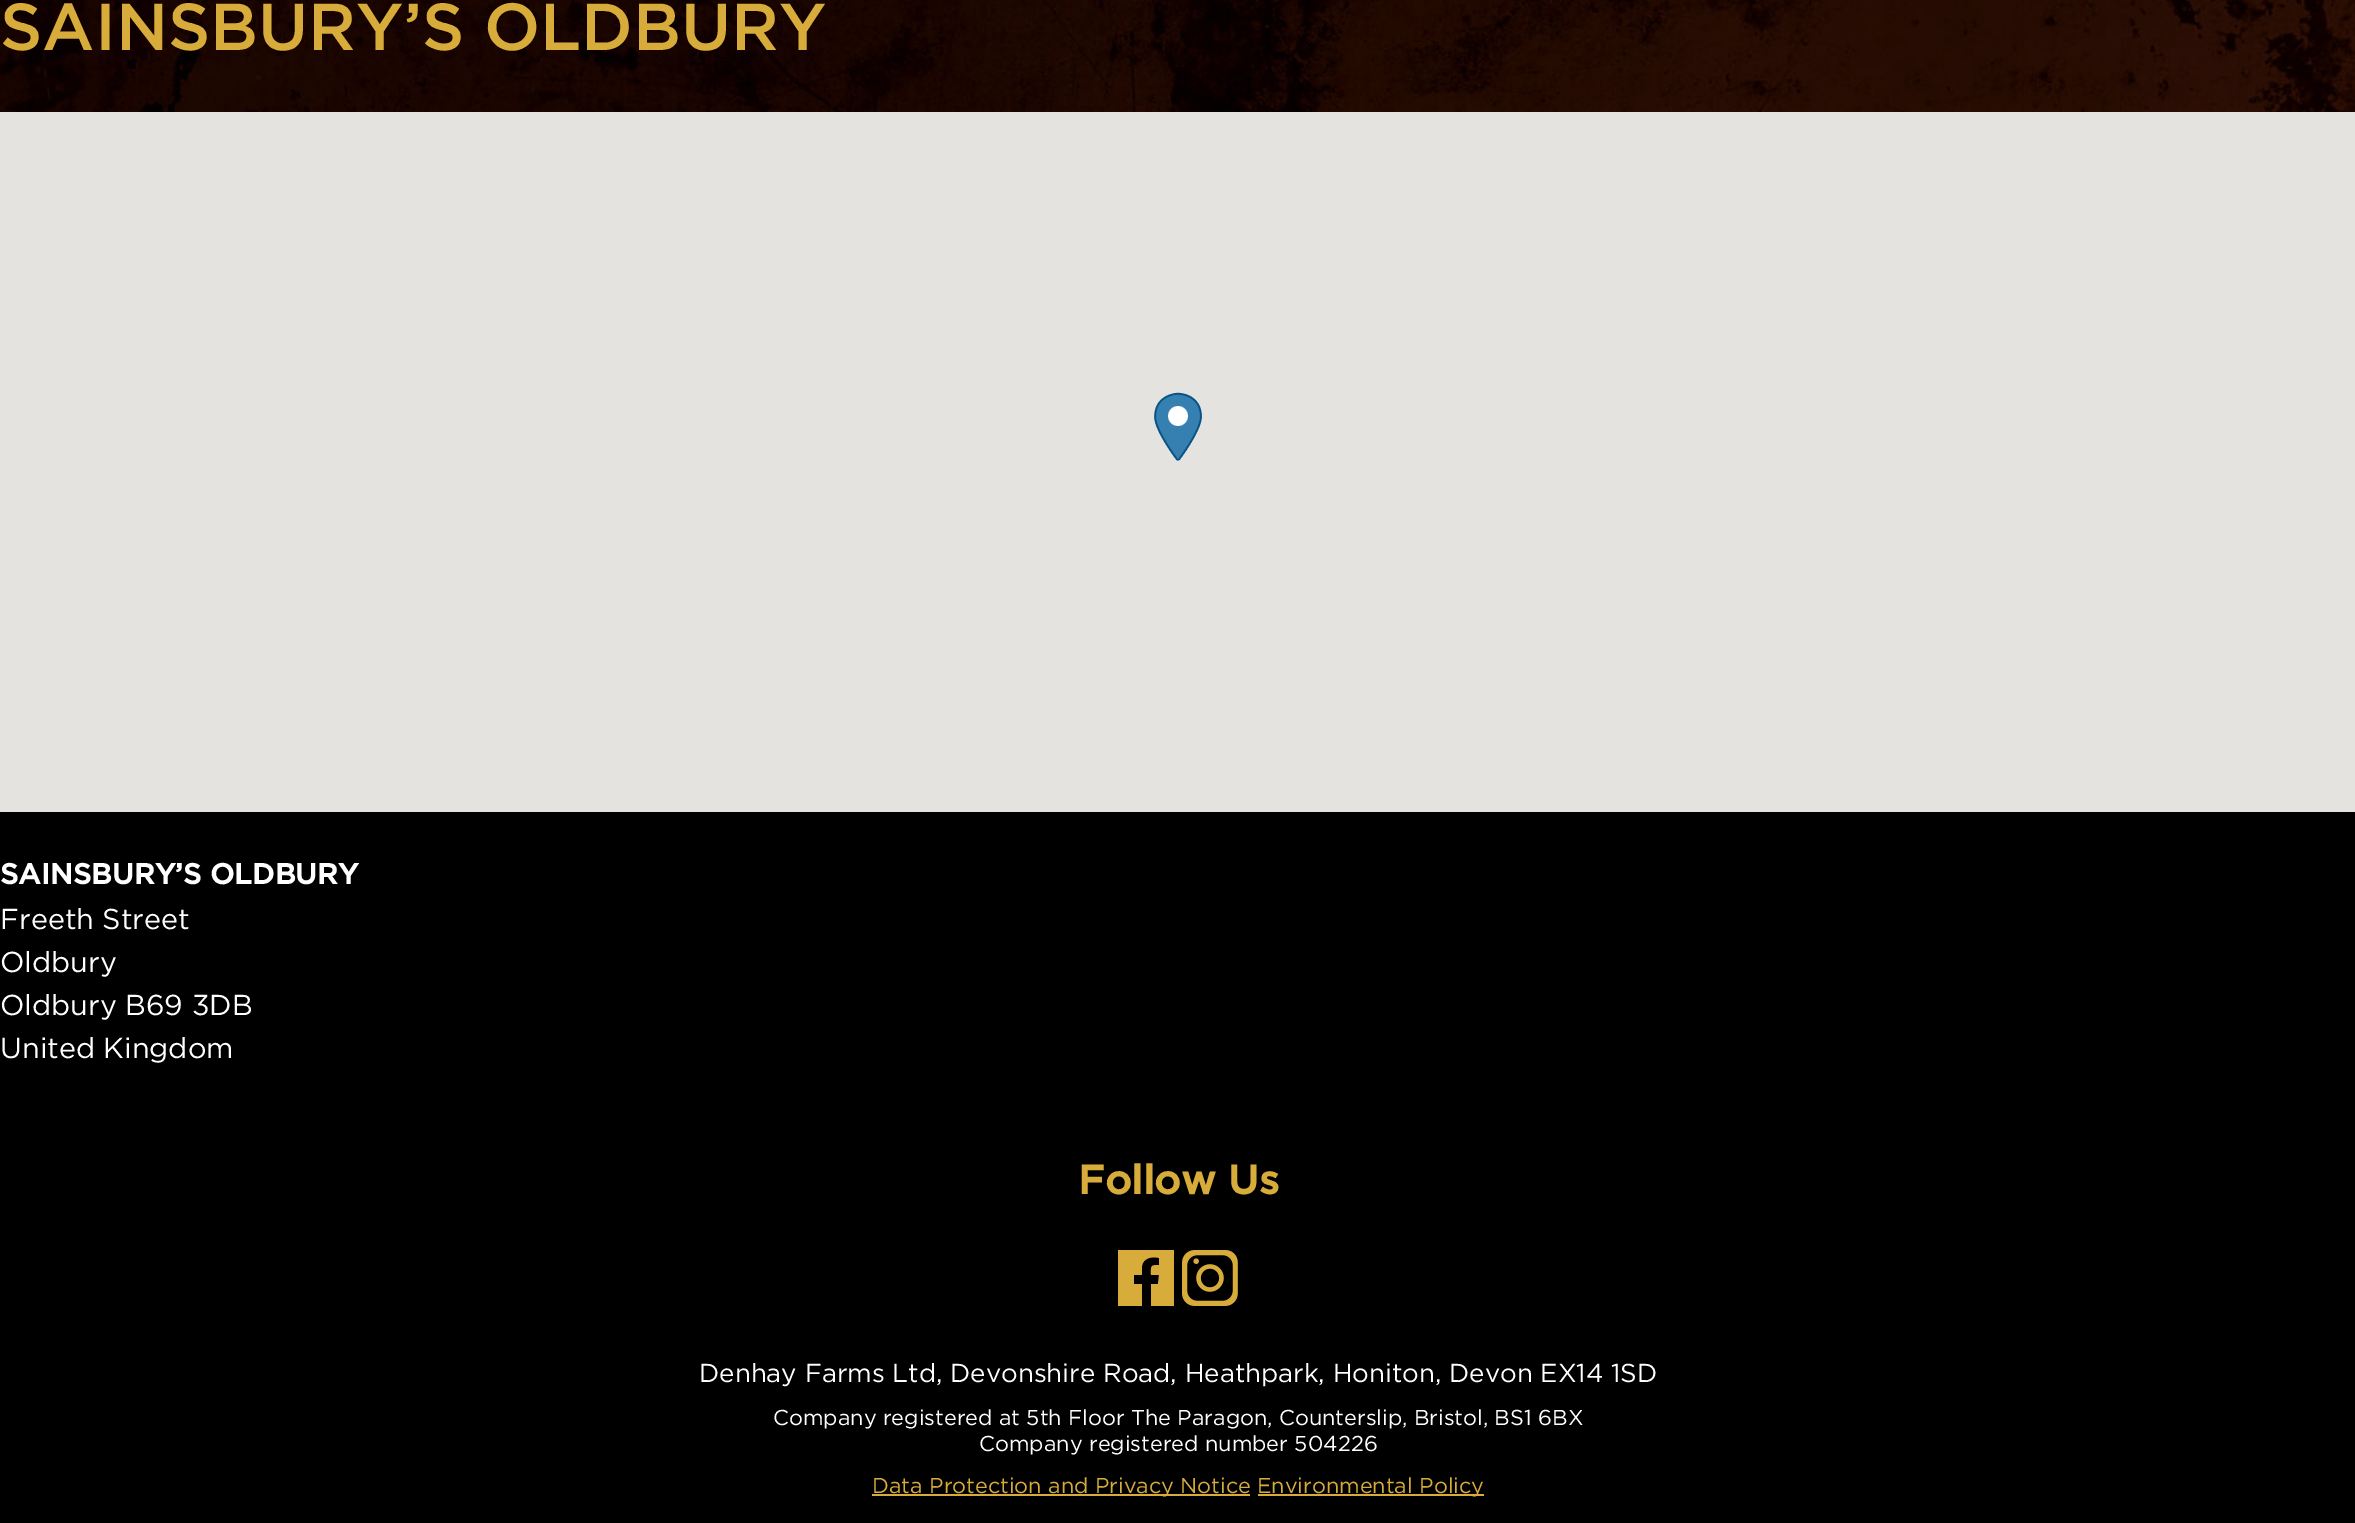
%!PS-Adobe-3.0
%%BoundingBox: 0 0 2355 1523
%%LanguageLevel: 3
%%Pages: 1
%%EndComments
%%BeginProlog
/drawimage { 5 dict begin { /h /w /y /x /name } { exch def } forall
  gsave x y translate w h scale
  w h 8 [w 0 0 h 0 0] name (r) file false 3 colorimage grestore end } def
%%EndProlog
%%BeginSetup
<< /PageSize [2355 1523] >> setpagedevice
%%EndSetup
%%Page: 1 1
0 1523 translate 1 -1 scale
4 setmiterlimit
0 setgray
0 0 2355 1523 rectfill
(images/1.raw) 0 0 2355 112 drawimage
0.898 0.89 0.875 setrgbcolor
0 112 2355 700 rectfill
(images/2.raw) 1154 392 48 69 drawimage
0.843 0.675 0.231 setrgbcolor
newpath 1118 1250 moveto 1118 1306 lineto 1142 1306 lineto 1142 1284 lineto 1134 1284 lineto 1134 1275 lineto 1142 1275 lineto 1142 1266 lineto 1143 1258 1152 1256 1159 1258 curveto 1159 1265 lineto 1150 1265 1151 1266 1151 1275 curveto 1159 1275 lineto 1158 1284 lineto 1151 1284 lineto 1151 1306 lineto 1174 1306 lineto 1174 1250 lineto closepath fill
(images/3.raw) 1182 1250 56 56 drawimage
872 1494 378 2 rectfill
1258 1494 226 2 rectfill
/Gotham-Medium [66.25 0 0 -66.25 0 0] selectfont
0 50 moveto (SAINSBURY’S OLDBURY) show
/Gotham-Bold [28.75 0 0 -28.75 0 0] selectfont
1 setgray
0 884 moveto (SAINSBURY’S OLDBURY) show
/Gotham-Regular [28.75 0 0 -28.75 0 0] selectfont
0 929 moveto (Freeth Street) show
0 972 moveto (Oldbury) show
0 1015 moveto (Oldbury B69 3DB) show
0 1058 moveto (United Kingdom) show
/Gotham-Bold [40.5 0 0 -40.5 0 0] selectfont
0.843 0.675 0.231 setrgbcolor
1078 1194 moveto (Follow Us) show
/Gotham-Regular [25.9 0 0 -25.9 0 0] selectfont
1 setgray
699 1382 moveto (Denhay Farms Ltd, Devonshire Road, Heathpark, Honiton, Devon EX14 1SD) show
/Gotham-Regular [21.6 0 0 -21.6 0 0] selectfont
773 1425 moveto -0.1 0 32 (Company registered at 5th Floor The Paragon, Counterslip, Bristol, BS1 6BX) widthshow
979 1451 moveto (Company registered number 504226) show
0.843 0.675 0.231 setrgbcolor
872 1493 moveto (Data Protection and Privacy Notice) show
1257 1493 moveto (Environmental Policy) show
showpage
%%EOF
